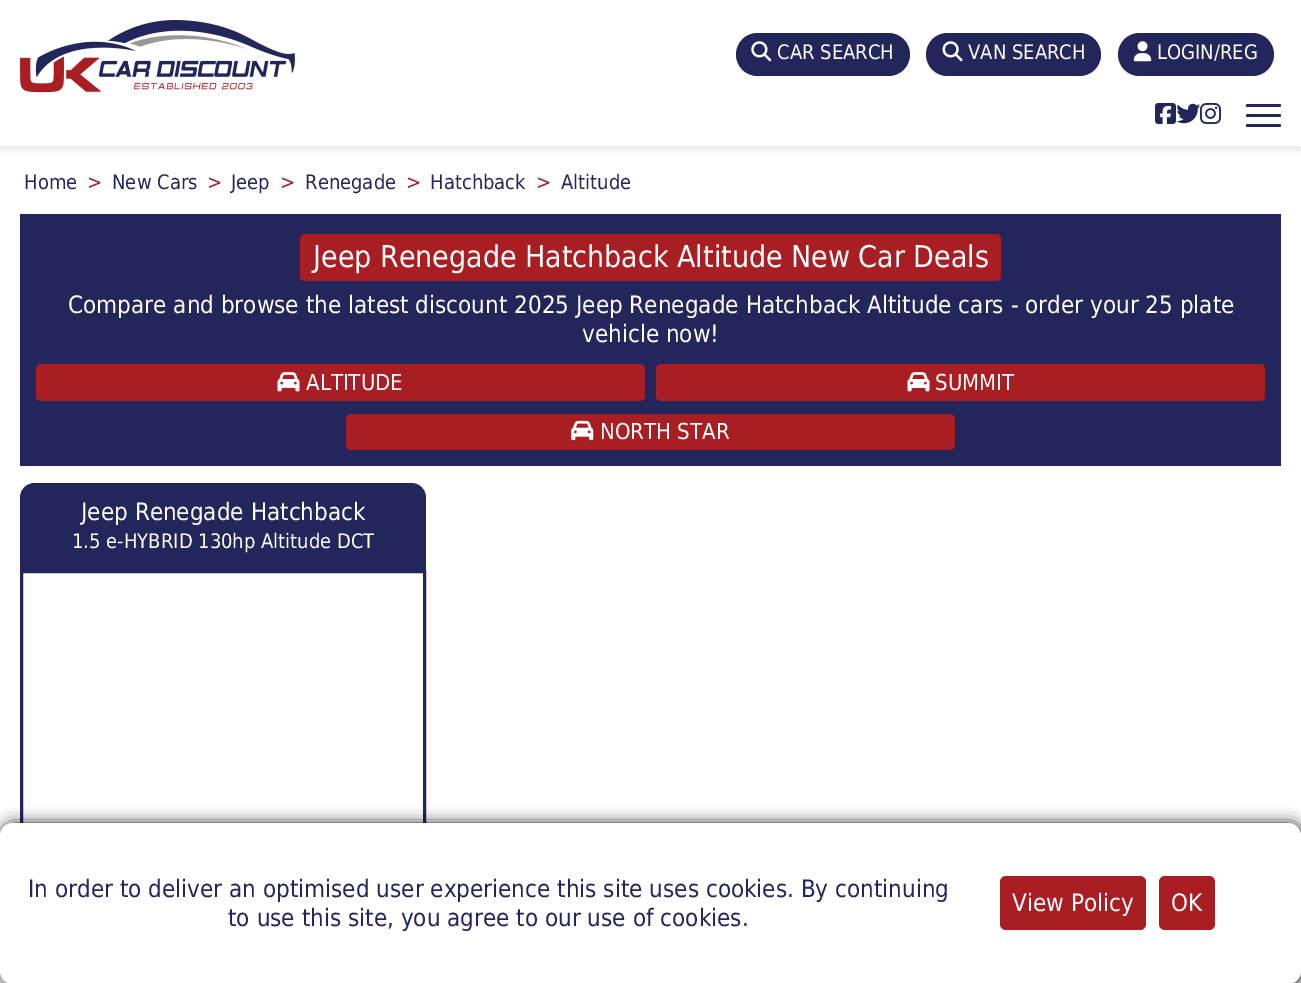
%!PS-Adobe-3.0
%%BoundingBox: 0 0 1301 983
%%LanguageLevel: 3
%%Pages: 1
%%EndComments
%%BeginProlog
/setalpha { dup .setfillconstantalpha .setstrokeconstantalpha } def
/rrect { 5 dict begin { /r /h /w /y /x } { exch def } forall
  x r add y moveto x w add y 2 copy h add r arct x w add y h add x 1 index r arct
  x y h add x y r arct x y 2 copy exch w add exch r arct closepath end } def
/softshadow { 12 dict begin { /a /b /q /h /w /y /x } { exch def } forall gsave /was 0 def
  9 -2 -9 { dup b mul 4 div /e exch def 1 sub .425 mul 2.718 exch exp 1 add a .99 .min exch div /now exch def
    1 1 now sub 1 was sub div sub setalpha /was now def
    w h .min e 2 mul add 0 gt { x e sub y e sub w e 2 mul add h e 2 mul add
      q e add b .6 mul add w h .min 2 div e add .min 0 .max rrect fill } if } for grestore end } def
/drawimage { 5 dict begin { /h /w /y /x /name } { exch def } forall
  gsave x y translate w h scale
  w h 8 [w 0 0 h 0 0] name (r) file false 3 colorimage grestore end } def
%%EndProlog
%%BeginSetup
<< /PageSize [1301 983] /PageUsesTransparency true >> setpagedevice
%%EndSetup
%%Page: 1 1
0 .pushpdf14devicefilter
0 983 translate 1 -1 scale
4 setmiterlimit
1 setgray
0 0 1301 983 rectfill
gsave
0 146 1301 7 rectclip
0 setgray
1 6 1299 144 0 4 0.1 softshadow
grestore
(images/1.raw) 20 20 275 73 drawimage
0.137 0.149 0.357 setrgbcolor
736 33 174 43 21.5 rrect fill
(images/2.raw) 751 41 21 21 drawimage
926 33 175 43 21.5 rrect fill
(images/3.raw) 942 41 21 21 drawimage
1118 33 156 43 21.5 rrect fill
(images/4.raw) 1133 41 19 21 drawimage
(images/5.raw) 1155 103 21 21 drawimage
(images/6.raw) 1176 103 25 21 drawimage
(images/7.raw) 1200 103 21 21 drawimage
1246 104 35 3 1.5 rrect fill
1246 114 35 3 1.5 rrect fill
1246 124 35 3 1.5 rrect fill
20 214 1261 252 rectfill
0.659 0.118 0.133 setrgbcolor
300 234 701 47 5 rrect fill
36 364 609 37 5 rrect fill
(images/8.raw) 277 372 23 20 drawimage
656 364 609 37 5 rrect fill
(images/8.raw) 907 372 23 20 drawimage
346 414 609 36 5 rrect fill
(images/9.raw) 571 420 23 21 drawimage
0.137 0.149 0.357 setrgbcolor
newpath 35 483 moveto 411 483 lineto 419.5 483 426 489.5 426 498 curveto 426 570 lineto 20 570 lineto 20 498 lineto 20 489.5 26.5 483 35 483 curveto closepath fill
3 setlinewidth
21.5 571.5 403 380 rectstroke
0 setgray
1 824 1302 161 13 7.5 1 softshadow
1 setgray
0 823 1301 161 13 rrect fill
0.659 0.118 0.133 setrgbcolor
1000 876 146 54 6 rrect fill
1159 876 56 54 6 rrect fill
/DejaVuSans-Regular [20 0 0 -20 0 0] selectfont
1 setgray
777 59 moveto (CAR SEARCH) show
968 59 moveto (VAN SEARCH) show
1157 59 moveto (LOGIN/REG) show
0.137 0.149 0.357 setrgbcolor
24 189 moveto (Home) show
0.659 0.118 0.133 setrgbcolor
87 189 moveto (>) show
0.137 0.149 0.357 setrgbcolor
112 189 moveto (New Cars) show
0.659 0.118 0.133 setrgbcolor
207 189 moveto (>) show
0.137 0.149 0.357 setrgbcolor
231 189 moveto (Jeep) show
0.659 0.118 0.133 setrgbcolor
280 189 moveto (>) show
0.137 0.149 0.357 setrgbcolor
305 189 moveto (Renegade) show
0.659 0.118 0.133 setrgbcolor
406 189 moveto (>) show
0.137 0.149 0.357 setrgbcolor
430 189 moveto (Hatchback) show
0.659 0.118 0.133 setrgbcolor
536 189 moveto (>) show
0.137 0.149 0.357 setrgbcolor
561 189 moveto (Altitude) show
/DejaVuSans-Regular [30 0 0 -30 0 0] selectfont
1 setgray
313 267 moveto (Jeep Renegade Hatchback Altitude New Car Deals) show
/DejaVuSans-Regular [24 0 0 -24 0 0] selectfont
68 313 moveto (Compare and browse the latest discount 2025 Jeep Renegade Hatchback Altitude cars - order your 25 plate) show
582 342 moveto (vehicle now!) show
/DejaVuSans-Regular [22 0 0 -22 0 0] selectfont
306 390 moveto (ALTITUDE) show
935 390 moveto (SUMMIT) show
600 439 moveto (NORTH STAR) show
/DejaVuSans-Regular [24 0 0 -24 0 0] selectfont
81 520 moveto (Jeep Renegade Hatchback) show
/DejaVuSans-Regular [20 0 0 -20 0 0] selectfont
72 548 moveto (1.5 e-HYBRID 130hp Altitude DCT) show
/DejaVuSans-Regular [24 0 0 -24 0 0] selectfont
0.137 0.149 0.357 setrgbcolor
28 897 moveto (In order to deliver an optimised user experience this site uses cookies. By continuing) show
228 926 moveto (to use this site, you agree to our use of cookies.) show
1 setgray
1012 911 moveto (View Policy) show
1171 911 moveto (OK) show
.poppdf14devicefilter showpage
%%EOF
